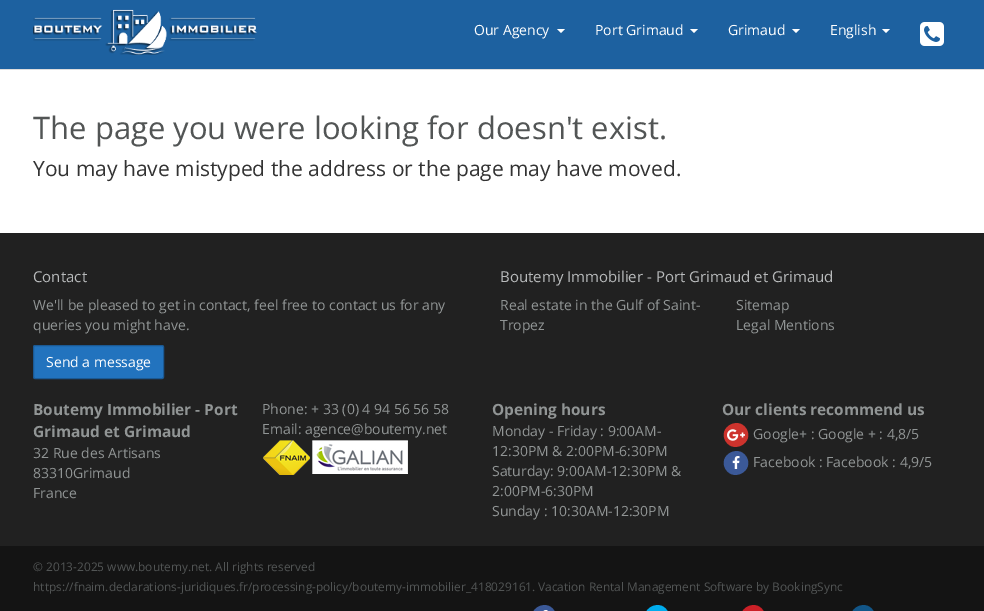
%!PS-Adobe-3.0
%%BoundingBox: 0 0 984 611
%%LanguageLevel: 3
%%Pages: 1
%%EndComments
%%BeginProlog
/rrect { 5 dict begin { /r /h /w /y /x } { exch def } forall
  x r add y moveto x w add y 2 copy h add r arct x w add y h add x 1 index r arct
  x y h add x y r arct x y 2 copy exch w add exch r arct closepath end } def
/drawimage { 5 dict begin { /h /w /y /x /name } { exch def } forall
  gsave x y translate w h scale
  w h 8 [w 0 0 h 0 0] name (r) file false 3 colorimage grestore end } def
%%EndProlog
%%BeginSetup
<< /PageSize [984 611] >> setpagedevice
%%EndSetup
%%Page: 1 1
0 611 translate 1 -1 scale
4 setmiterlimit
1 setgray
0 0 984 611 rectfill
0.114 0.38 0.627 setrgbcolor
0 0 984 69 rectfill
(images/1.raw) 33 9 224 46 drawimage
1 setgray
newpath 557 29 moveto 565 29 lineto 561 33 lineto closepath fill
newpath 690 29 moveto 698 29 lineto 694 33 lineto closepath fill
newpath 792 29 moveto 800 29 lineto 796 33 lineto closepath fill
newpath 882 29 moveto 890 29 lineto 886 33 lineto closepath fill
(images/2.raw) 920 22 24 24 drawimage
0.867 setgray
0 69 984 1 rectfill
0.129 setgray
0 233 984 313 rectfill
0.133 0.451 0.745 setrgbcolor
33.5 345.5 130 33 1.5 rrect gsave fill grestore
0.106 0.349 0.576 setrgbcolor
stroke
(images/3.raw) 263 440 47 35 drawimage
(images/4.raw) 312 440 96 34 drawimage
0.804 0.2 0.176 setrgbcolor
newpath 746.5 429 moveto 754.5 442.5 733.5 454.5 725.5 441 curveto 717.5 427.5 738.5 415.5 746.5 429 curveto closepath fill
(images/5.raw) 727 429 18 12 drawimage
0.231 0.349 0.596 setrgbcolor
newpath 746.5 457 moveto 754.5 470.5 733.5 482.5 725.5 469 curveto 717.5 455.5 738.5 443.5 746.5 457 curveto closepath fill
(images/6.raw) 732 456 8 13 drawimage
0.078 setgray
0 546 984 65 rectfill
0.231 0.349 0.596 setrgbcolor
newpath 554.5 611 moveto 562.5 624.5 541.5 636.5 533.5 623 curveto 525.5 609.5 546.5 597.5 554.5 611 curveto closepath fill
(images/7.raw) 543 610 5 1 drawimage
0 0.675 0.929 setrgbcolor
newpath 667.5 611 moveto 675.5 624.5 654.5 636.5 646.5 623 curveto 638.5 609.5 659.5 597.5 667.5 611 curveto closepath fill
0.796 0.125 0.153 setrgbcolor
newpath 763.5 611 moveto 771.5 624.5 750.5 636.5 742.5 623 curveto 734.5 609.5 755.5 597.5 763.5 611 curveto closepath fill
0.071 0.337 0.533 setrgbcolor
newpath 873.5 611 moveto 881.5 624.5 860.5 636.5 852.5 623 curveto 844.5 609.5 865.5 597.5 873.5 611 curveto closepath fill
/OpenSans-Regular [14 0 0 -14 0 0] selectfont
1 setgray
474 35 moveto (Our Agency) show
595 35 moveto (Port Grimaud) show
728 35 moveto (Grimaud) show
830 35 moveto (English) show
/OpenSans-Regular [31 0 0 -31 0 0] selectfont
0.322 0.333 0.333 setrgbcolor
33 139 moveto (The page you were looking for doesn't exist.) show
/OpenSans-Regular [21 0 0 -21 0 0] selectfont
0.2 setgray
33 176 moveto (You may have mistyped the address or the page may have moved.) show
/OpenSans-Regular [15 0 0 -15 0 0] selectfont
0.722 0.729 0.733 setrgbcolor
33 282 moveto (Contact) show
/OpenSans-Regular [14 0 0 -14 0 0] selectfont
0.569 0.584 0.584 setrgbcolor
33 310 moveto (We'll be pleased to get in contact, feel free to contact us for any) show
33 330 moveto (queries you might have.) show
1 setgray
46 367 moveto (Send a message) show
/OpenSans-Regular [15 0 0 -15 0 0] selectfont
0.722 0.729 0.733 setrgbcolor
500 282 moveto (Boutemy Immobilier - Port Grimaud et Grimaud) show
/OpenSans-Regular [14 0 0 -14 0 0] selectfont
0.569 0.584 0.584 setrgbcolor
500 310 moveto (Real estate in the Gulf of Saint-) show
500 330 moveto (Tropez) show
736 310 moveto (Sitemap) show
736 330 moveto (Legal Mentions) show
/OpenSans-Bold [15.4 0 0 -15.4 0 0] selectfont
33 415 moveto (Boutemy Immobilier - Port) show
33 437 moveto (Grimaud et Grimaud) show
/OpenSans-Regular [14 0 0 -14 0 0] selectfont
33 458 moveto (32 Rue des Artisans) show
33 478 moveto (83310Grimaud) show
33 498 moveto (France) show
262 414 moveto (Phone: + 33 \(0\) 4 94 56 56 58) show
262 434 moveto (Email: agence@boutemy.net) show
/OpenSans-Bold [15.4 0 0 -15.4 0 0] selectfont
492 415 moveto (Opening hours) show
/OpenSans-Regular [14 0 0 -14 0 0] selectfont
492 436 moveto (Monday - Friday : 9:00AM-) show
492 456 moveto (12:30PM & 2:00PM-6:30PM) show
492 476 moveto (Saturday: 9:00AM-12:30PM &) show
492 496 moveto (2:00PM-6:30PM) show
492 516 moveto (Sunday : 10:30AM-12:30PM) show
/OpenSans-Bold [15.4 0 0 -15.4 0 0] selectfont
722 415 moveto (Our clients recommend us) show
/OpenSans-Regular [14 0 0 -14 0 0] selectfont
753 439 moveto (Google+ : Google + : 4,8/5) show
753 467 moveto (Facebook : Facebook : 4,9/5) show
/OpenSans-Regular [11.9 0 0 -11.9 0 0] selectfont
0.322 0.333 0.333 setrgbcolor
33 571 moveto (© 2013-2025 www.boutemy.net. All rights reserved) show
33 591 moveto (https://fnaim.declarations-juridiques.fr/processing-policy/boutemy-immobilier_418029161.) show
538 591 moveto (Vacation Rental Management Software by BookingSync) show
showpage
%%EOF
